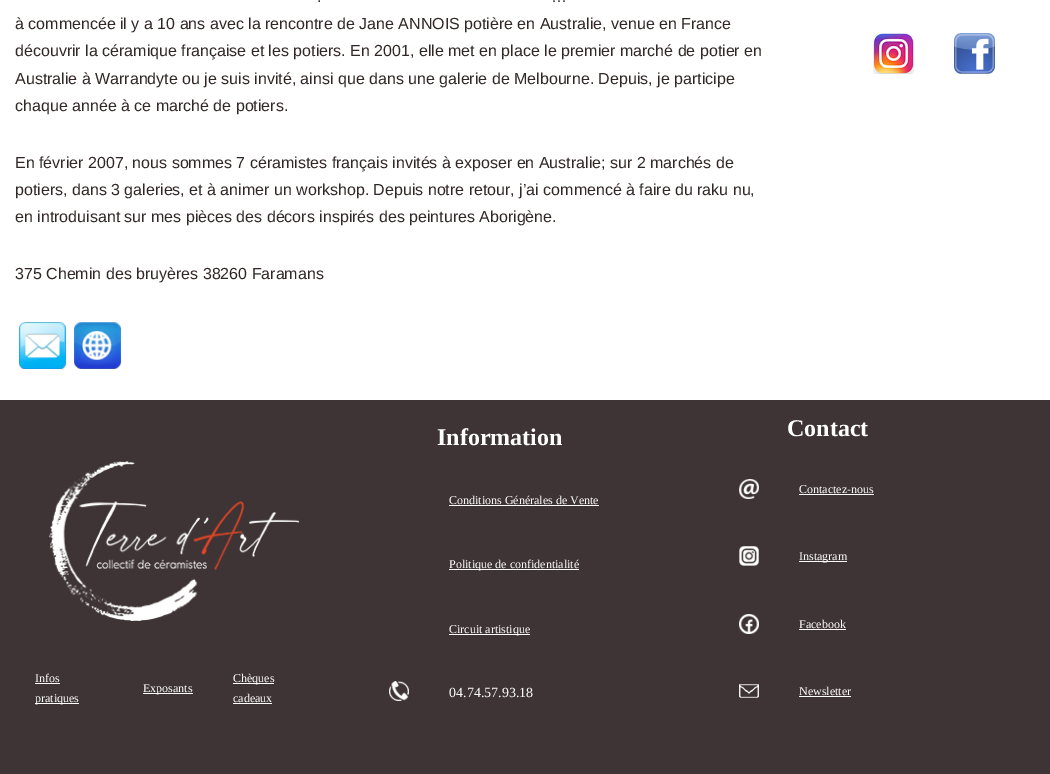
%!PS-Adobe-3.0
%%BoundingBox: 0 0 1050 774
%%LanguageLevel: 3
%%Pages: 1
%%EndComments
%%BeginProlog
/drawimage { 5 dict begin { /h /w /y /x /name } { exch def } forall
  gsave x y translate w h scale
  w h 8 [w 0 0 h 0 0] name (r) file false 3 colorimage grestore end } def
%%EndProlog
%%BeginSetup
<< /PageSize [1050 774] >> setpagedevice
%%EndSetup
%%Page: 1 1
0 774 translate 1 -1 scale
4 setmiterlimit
1 setgray
0 0 1050 774 rectfill
(images/1.raw) 19 322 47 47 drawimage
(images/2.raw) 74 322 47 47 drawimage
(images/3.raw) 873 33 41 41 drawimage
(images/4.raw) 954 33 41 41 drawimage
0.243 0.204 0.208 setrgbcolor
0 400 1050 374 rectfill
(images/5.raw) 49 461 251 160 drawimage
1 setgray
35 683 25 1 rectfill
35 703 44 1 rectfill
143 693 50 1 rectfill
233 683 41 1 rectfill
233 703 39 1 rectfill
449 505 150 1 rectfill
449 569 130 1 rectfill
449 634 81 1 rectfill
(images/6.raw) 389 681 20 20 drawimage
(images/7.raw) 739 479 20 20 drawimage
799 494 75 1 rectfill
(images/8.raw) 739 546 20 20 drawimage
799 561 48 1 rectfill
(images/9.raw) 739 614 20 20 drawimage
799 629 47 1 rectfill
(images/10.raw) 739 684 20 14 drawimage
799 696 52 1 rectfill
/LiberationSans-Regular [16 0 0 -16 0 0] selectfont
0.192 0.153 0.149 setrgbcolor
317 2 moveto (.) show
551 2 moveto (…) show
15 29 moveto (à commencée il y a 10 ans avec la rencontre de Jane ANNOIS potière en Australie, venue en France) show
15 56 moveto (découvrir la céramique française et les potiers. En 2001, elle met en place le premier marché de potier en) show
15 84 moveto (Australie à Warrandyte ou je suis invité, ainsi que dans une galerie de Melbourne. Depuis, je participe) show
15 111 moveto (chaque année à ce marché de potiers.) show
15 168 moveto (En février 2007, nous sommes 7 céramistes français invités à exposer en Australie; sur 2 marchés de) show
15 195 moveto (potiers, dans 3 galeries, et à animer un workshop. Depuis notre retour, j’ai commencé à faire du raku nu,) show
15 222 moveto (en introduisant sur mes pièces des décors inspirés des peintures Aborigène.) show
15 279 moveto (375 Chemin des bruyères 38260 Faramans) show
/LiberationSerif-Regular [12 0 0 -12 0 0] selectfont
1 setgray
35 682 moveto (Infos) show
35 702 moveto (pratiques) show
143 692 moveto (Exposants) show
233 682 moveto (Chèques) show
233 702 moveto (cadeaux) show
/LiberationSerif-Bold [24 0 0 -24 0 0] selectfont
437 445 moveto (Information) show
/LiberationSerif-Regular [12 0 0 -12 0 0] selectfont
449 504 moveto (Conditions Générales de Vente) show
449 568 moveto (Politique de confidentialité) show
449 633 moveto (Circuit artistique) show
/LiberationSerif-Regular [14 0 0 -14 0 0] selectfont
449 697 moveto (04.74.57.93.18) show
/LiberationSerif-Bold [24 0 0 -24 0 0] selectfont
787 436 moveto (Contact) show
/LiberationSerif-Regular [12 0 0 -12 0 0] selectfont
799 493 moveto (Contactez-nous) show
799 560 moveto (Instagram) show
799 628 moveto (Facebook) show
799 695 moveto (Newsletter) show
showpage
%%EOF
